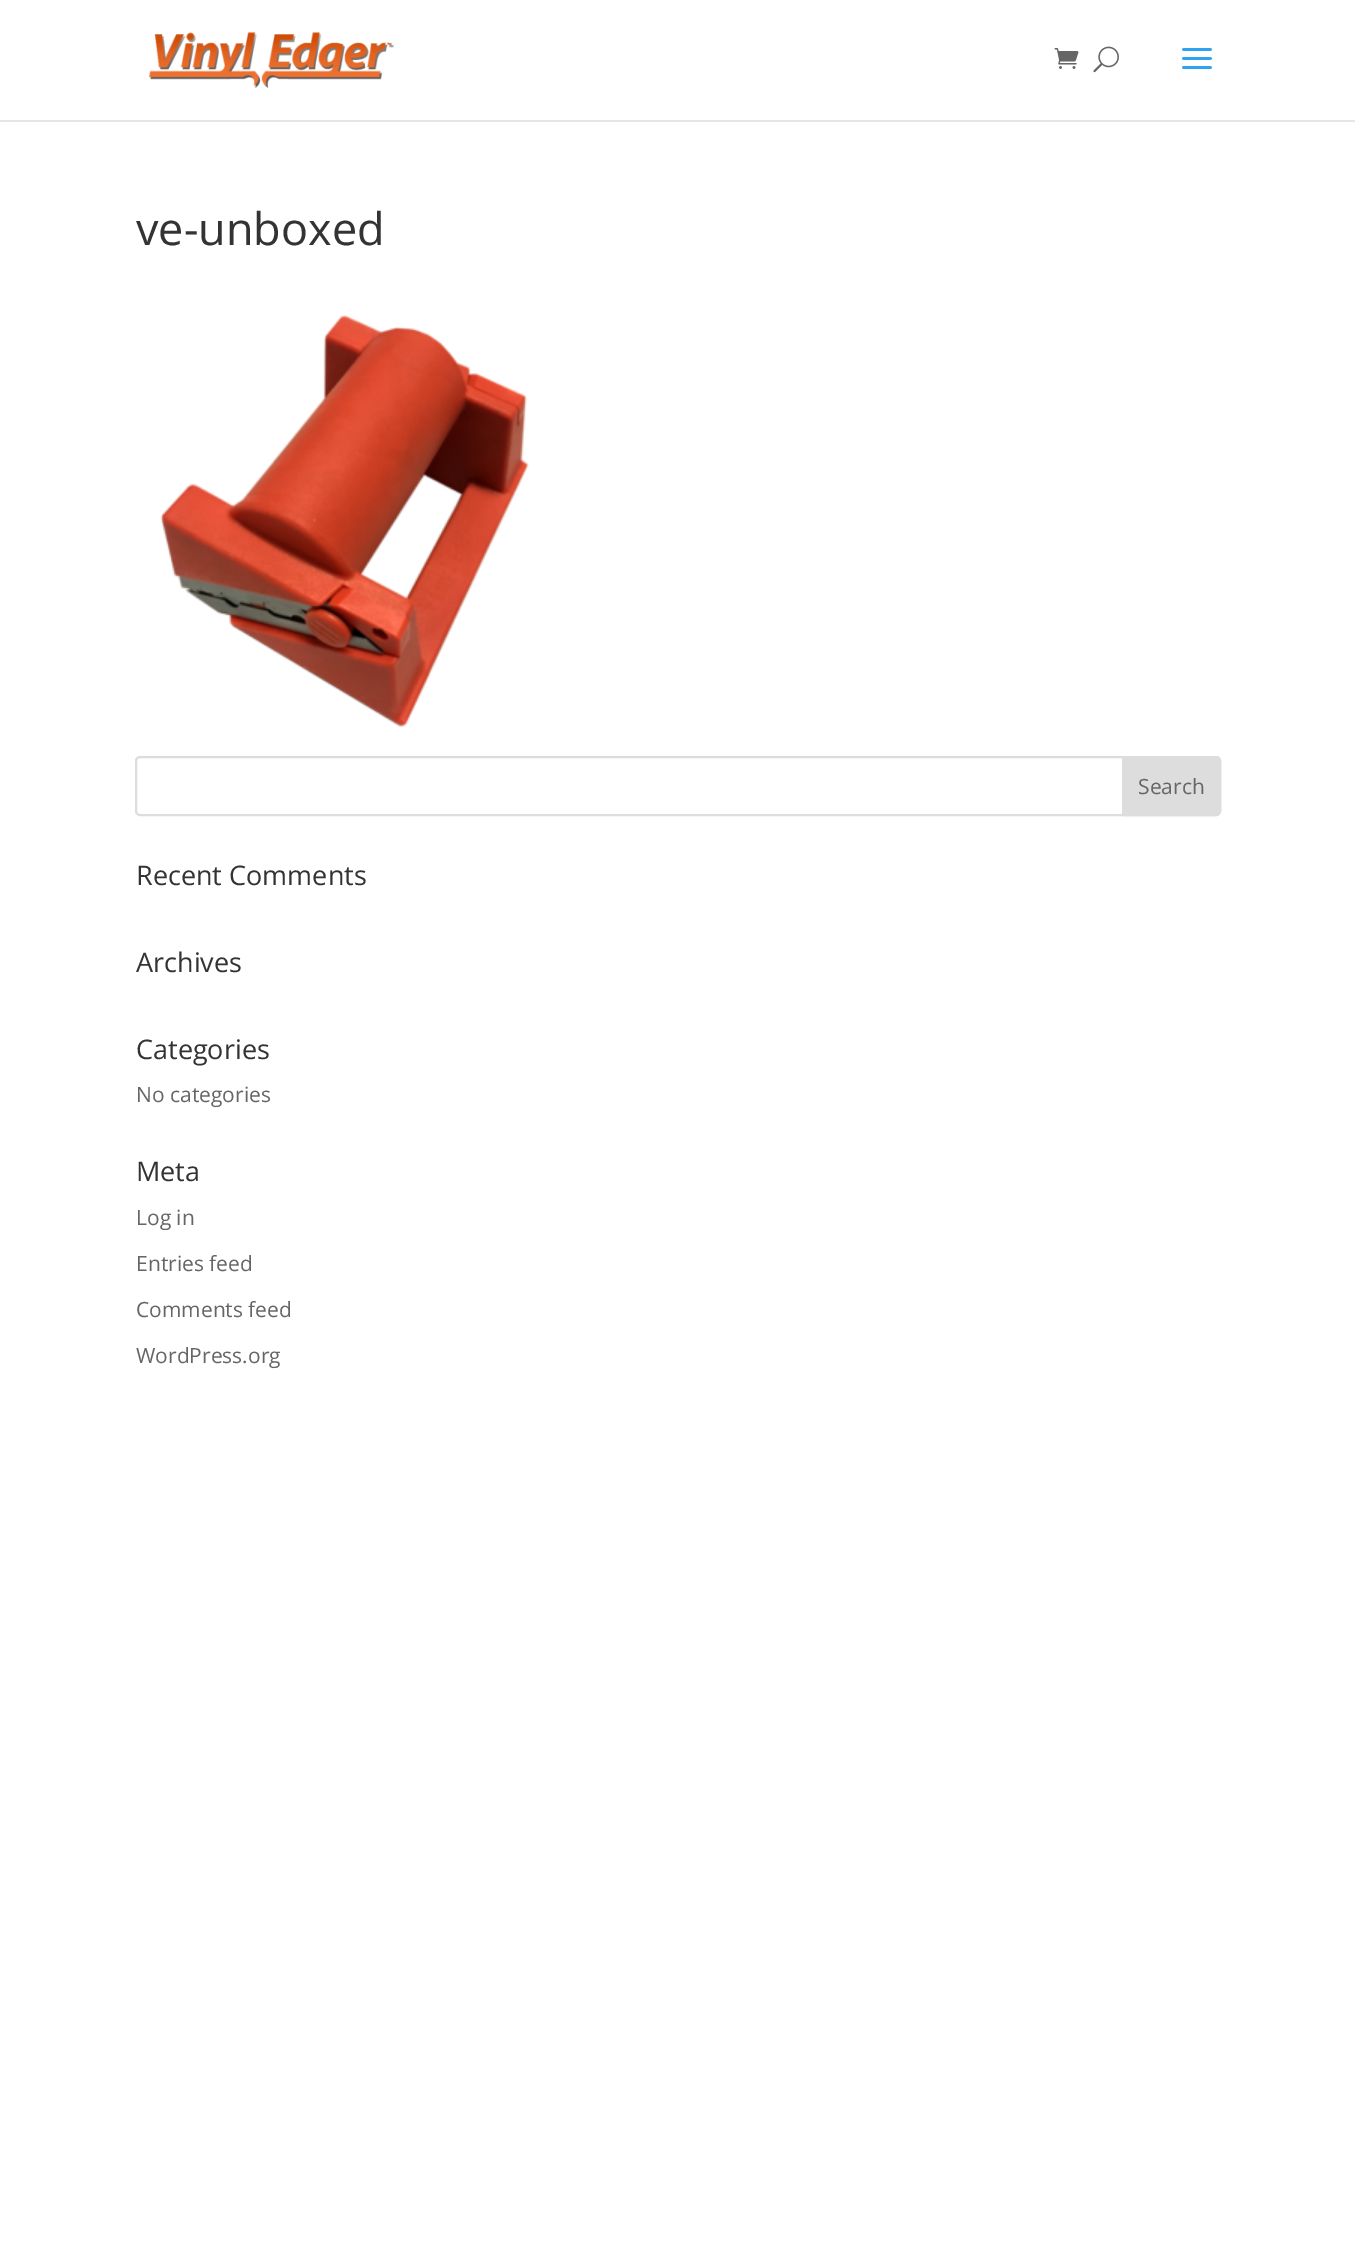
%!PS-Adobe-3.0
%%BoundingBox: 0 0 1355 2245
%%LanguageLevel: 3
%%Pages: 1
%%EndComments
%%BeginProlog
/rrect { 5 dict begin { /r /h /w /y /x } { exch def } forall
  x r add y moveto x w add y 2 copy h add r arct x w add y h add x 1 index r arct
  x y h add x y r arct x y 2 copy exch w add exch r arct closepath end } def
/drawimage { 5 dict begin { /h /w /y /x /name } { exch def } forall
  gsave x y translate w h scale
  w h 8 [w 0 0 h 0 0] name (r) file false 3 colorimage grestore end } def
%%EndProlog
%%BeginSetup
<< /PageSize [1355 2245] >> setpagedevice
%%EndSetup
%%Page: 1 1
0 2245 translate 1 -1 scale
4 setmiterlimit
1 setgray
0 0 1355 2245 rectfill
0.902 setgray
0 120 1355 2 rectfill
(images/1.raw) 148 31 246 57 drawimage
(images/2.raw) 1054 48 25 21 drawimage
(images/3.raw) 1093 46 26 27 drawimage
(images/4.raw) 1182 48 30 21 drawimage
(images/5.raw) 160 314 369 414 drawimage
0.867 setgray
2 setlinewidth
136 757 1084 58 4 rrect stroke
newpath 1123 757 moveto 1216 757 lineto 1218 757 1220 759 1220 761 curveto 1220 811 lineto 1220 813 1218 815 1216 815 curveto 1123 815 lineto closepath gsave fill grestore
stroke
/OpenSans-Regular [45 0 0 -45 0 0] selectfont
0.2 setgray
136 245 moveto (ve-unboxed) show
/OpenSans-Regular [21 0 0 -21 0 0] selectfont
0.4 setgray
1138 794 moveto (Search) show
/OpenSans-Regular [27 0 0 -27 0 0] selectfont
0.2 setgray
136 885 moveto (Recent Comments) show
136 972 moveto (Archives) show
136 1059 moveto (Categories) show
/OpenSans-Regular [21 0 0 -21 0 0] selectfont
0.4 setgray
136 1102 moveto (No categories) show
/OpenSans-Regular [27 0 0 -27 0 0] selectfont
0.2 setgray
136 1181 moveto (Meta) show
/OpenSans-Regular [21 0 0 -21 0 0] selectfont
0.4 setgray
136 1225 moveto (Log in) show
136 1271 moveto (Entries feed) show
136 1317 moveto (Comments feed) show
136 1363 moveto (WordPress.org) show
showpage
%%EOF
